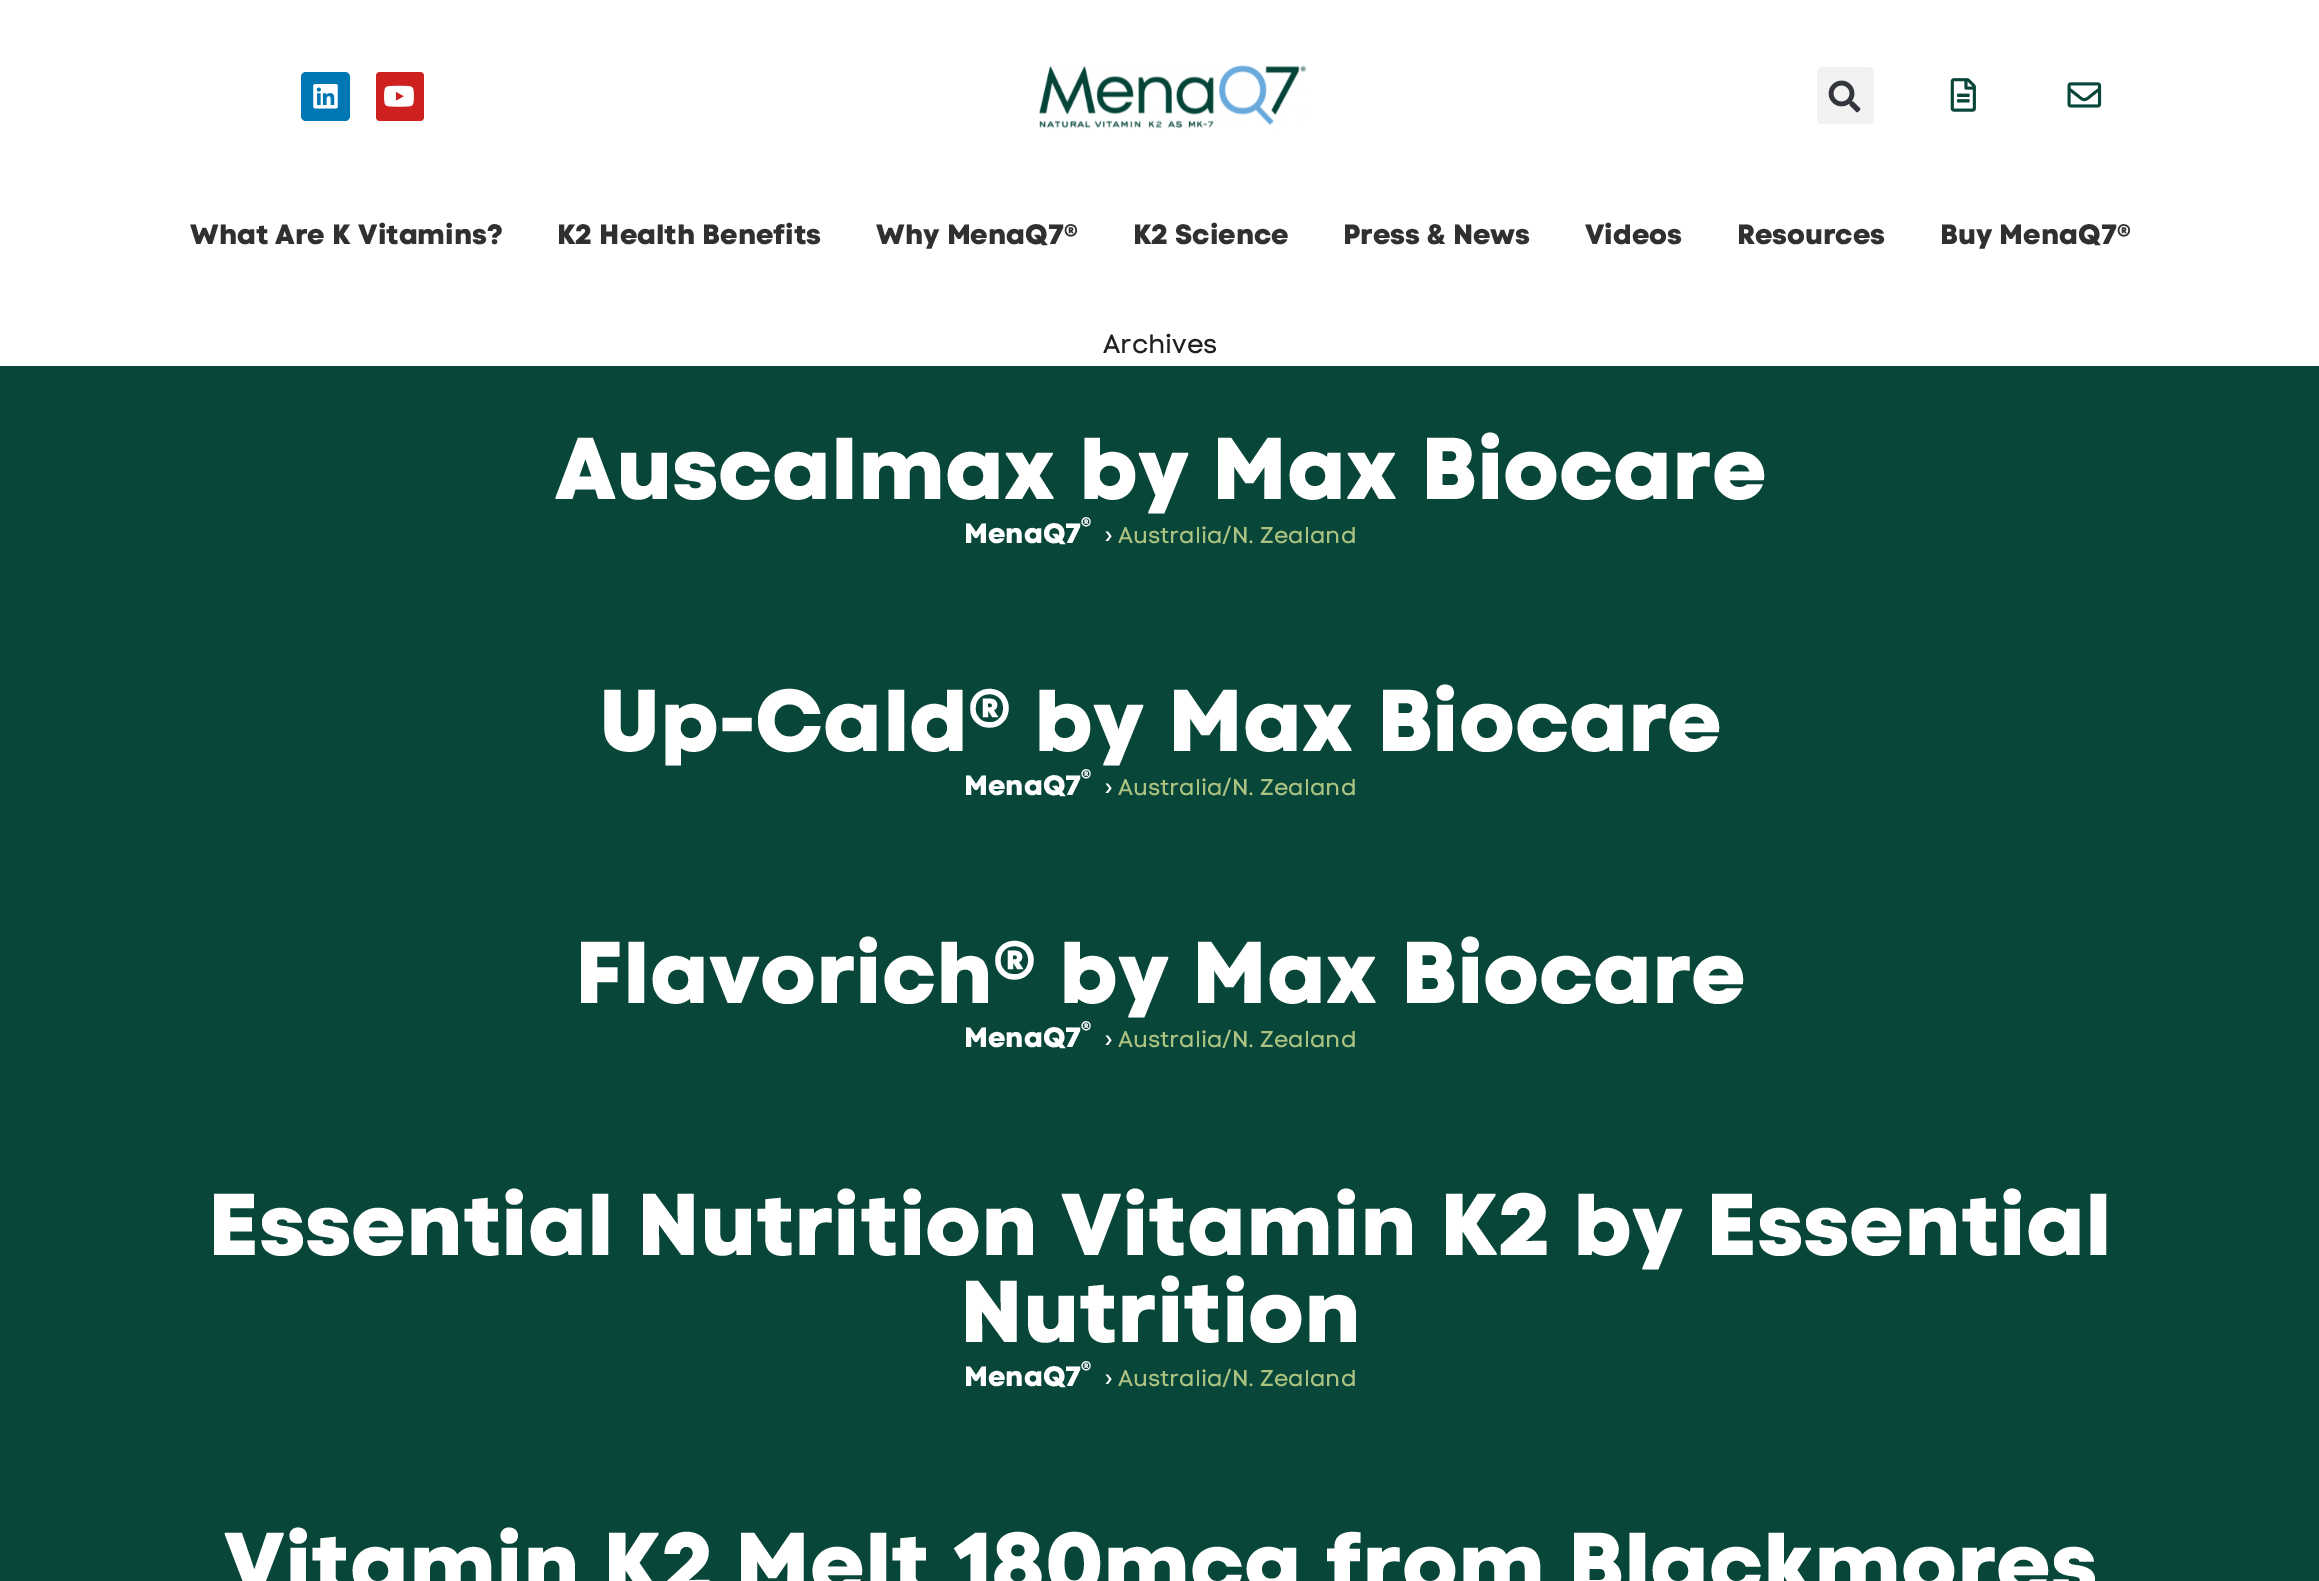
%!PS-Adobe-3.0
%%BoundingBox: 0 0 2319 1581
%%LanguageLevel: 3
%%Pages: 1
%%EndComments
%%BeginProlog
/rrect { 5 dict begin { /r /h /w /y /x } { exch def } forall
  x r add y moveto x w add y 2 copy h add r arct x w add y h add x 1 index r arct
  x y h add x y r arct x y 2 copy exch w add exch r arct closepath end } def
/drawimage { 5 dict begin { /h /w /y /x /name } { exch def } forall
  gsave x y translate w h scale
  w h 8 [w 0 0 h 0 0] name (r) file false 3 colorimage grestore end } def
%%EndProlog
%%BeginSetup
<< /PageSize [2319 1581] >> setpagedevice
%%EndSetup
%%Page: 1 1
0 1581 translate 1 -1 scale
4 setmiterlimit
1 setgray
0 0 2319 1581 rectfill
0 0.467 0.71 setrgbcolor
301 72 49 49 5 rrect fill
(images/1.raw) 313 84 25 25 drawimage
0.804 0.125 0.122 setrgbcolor
376 72 48 49 4 rrect fill
(images/2.raw) 384 85 30 22 drawimage
(images/3.raw) 1039 65 268 64 drawimage
0.949 setgray
1817 67 57 57 5 rrect fill
(images/4.raw) 1828 80 33 33 drawimage
(images/5.raw) 1950 78 26 34 drawimage
(images/6.raw) 2067 82 35 26 drawimage
0.031 0.275 0.227 setrgbcolor
0 366 2319 1215 rectfill
/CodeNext-ExtraBold [28 0 0 -28 0 0] selectfont
0.188 setgray
190 244 moveto (What Are K Vitamins?) show
557 244 moveto (K2 Health Benefits) show
876 244 moveto (Why MenaQ7®) show
1133 244 moveto (K2 Science) show
1343 244 moveto (Press & News) show
1585 244 moveto (Videos) show
1737 244 moveto (Resources) show
1940 244 moveto (Buy MenaQ7®) show
/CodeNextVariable-Regular [26.25 0 0 -26.25 0 0] selectfont
0.137 0.122 0.125 setrgbcolor
1103 353 moveto (Archives) show
/CodeNext-ExtraBold [87.5 0 0 -87.5 0 0] selectfont
1 setgray
555 499 moveto (Auscalmax by Max Biocare) show
/CodeNext-ExtraBold [21 0 0 -21 0 0] selectfont
1081 532 moveto (®) show
/CodeNext-ExtraBold [28 0 0 -28 0 0] selectfont
964 543 moveto (MenaQ7) show
/CodeNextVariable-Regular [22.75 0 0 -22.75 0 0] selectfont
1105 543 moveto (›) show
0.675 0.761 0.502 setrgbcolor
1118 543 moveto (Australia/N. Zealand) show
/CodeNext-ExtraBold [87.5 0 0 -87.5 0 0] selectfont
1 setgray
599 751 moveto (Up-Cald® by Max Biocare) show
/CodeNext-ExtraBold [21 0 0 -21 0 0] selectfont
1081 784 moveto (®) show
/CodeNext-ExtraBold [28 0 0 -28 0 0] selectfont
964 795 moveto (MenaQ7) show
/CodeNextVariable-Regular [22.75 0 0 -22.75 0 0] selectfont
1105 795 moveto (›) show
0.675 0.761 0.502 setrgbcolor
1118 795 moveto (Australia/N. Zealand) show
/CodeNext-ExtraBold [87.5 0 0 -87.5 0 0] selectfont
1 setgray
575 1003 moveto (Flavorich® by Max Biocare) show
/CodeNext-ExtraBold [21 0 0 -21 0 0] selectfont
1081 1036 moveto (®) show
/CodeNext-ExtraBold [28 0 0 -28 0 0] selectfont
964 1047 moveto (MenaQ7) show
/CodeNextVariable-Regular [22.75 0 0 -22.75 0 0] selectfont
1105 1047 moveto (›) show
0.675 0.761 0.502 setrgbcolor
1118 1047 moveto (Australia/N. Zealand) show
/CodeNext-ExtraBold [87.5 0 0 -87.5 0 0] selectfont
1 setgray
208 1255 moveto (Essential Nutrition Vitamin K2 by Essential) show
960 1342 moveto (Nutrition) show
/CodeNext-ExtraBold [28 0 0 -28 0 0] selectfont
964 1386 moveto (MenaQ7) show
/CodeNext-ExtraBold [21 0 0 -21 0 0] selectfont
1081 1376 moveto (®) show
/CodeNextVariable-Regular [22.75 0 0 -22.75 0 0] selectfont
1105 1386 moveto (›) show
0.675 0.761 0.502 setrgbcolor
1118 1386 moveto (Australia/N. Zealand) show
/CodeNext-ExtraBold [87.5 0 0 -87.5 0 0] selectfont
1 setgray
224 1594 moveto (Vitamin K2 Melt 180mcg from Blackmores) show
showpage
%%EOF
